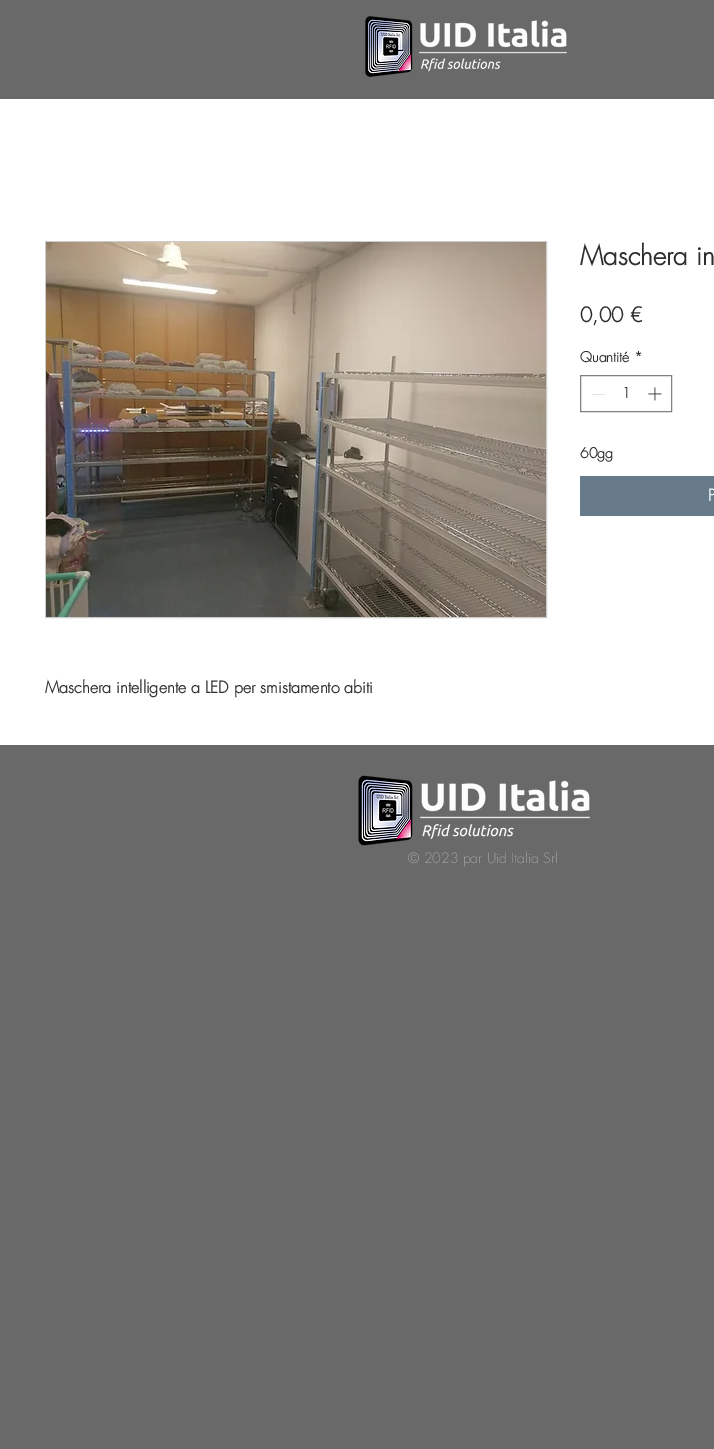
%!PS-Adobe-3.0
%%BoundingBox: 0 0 714 1449
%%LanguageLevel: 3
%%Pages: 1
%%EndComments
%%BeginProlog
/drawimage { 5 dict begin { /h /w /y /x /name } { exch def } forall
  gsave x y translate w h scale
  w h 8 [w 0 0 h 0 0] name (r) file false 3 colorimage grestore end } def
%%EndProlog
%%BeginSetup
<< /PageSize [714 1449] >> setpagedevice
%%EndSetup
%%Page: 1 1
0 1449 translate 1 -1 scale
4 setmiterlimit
0.412 setgray
0 0 714 1449 rectfill
(images/1.raw) 365 16 202 61 drawimage
1 setgray
0 99 714 646 rectfill
0.51 setgray
580.5 375.5 91 36 rectstroke
0.89 setgray
592 394 13 1 rectfill
(images/2.raw) 648 387 14 14 drawimage
0.408 0.482 0.541 setrgbcolor
580 476 134 40 rectfill
0.8 setgray
45.5 241.5 501 376 rectstroke
(images/3.raw) 46 242 500 375 drawimage
(images/4.raw) 358 775 232 71 drawimage
/futura-Bold [26 0 0 -26 0 0] selectfont
0.184 0.18 0.18 setrgbcolor
580 265 moveto (Maschera in) show
/futura-Bold [20 0 0 -20 0 0] selectfont
580 322 moveto (0,00 €) show
/futura-Bold [14 0 0 -14 0 0] selectfont
580 362 moveto (Quantité) show
634 362 moveto (*) show
622 398 moveto (1) show
580 458 moveto (60gg) show
/futura-Bold [16 0 0 -16 0 0] selectfont
1 setgray
708 501 moveto (P) show
0.184 0.18 0.18 setrgbcolor
45 693 moveto (Maschera intelligente a LED per smistamento abiti) show
/futura-Light [14 0 0 -14 0 0] selectfont
0.627 0.627 0.624 setrgbcolor
408 863 moveto (© 2023 par Uid Italia Srl) show
showpage
%%EOF
